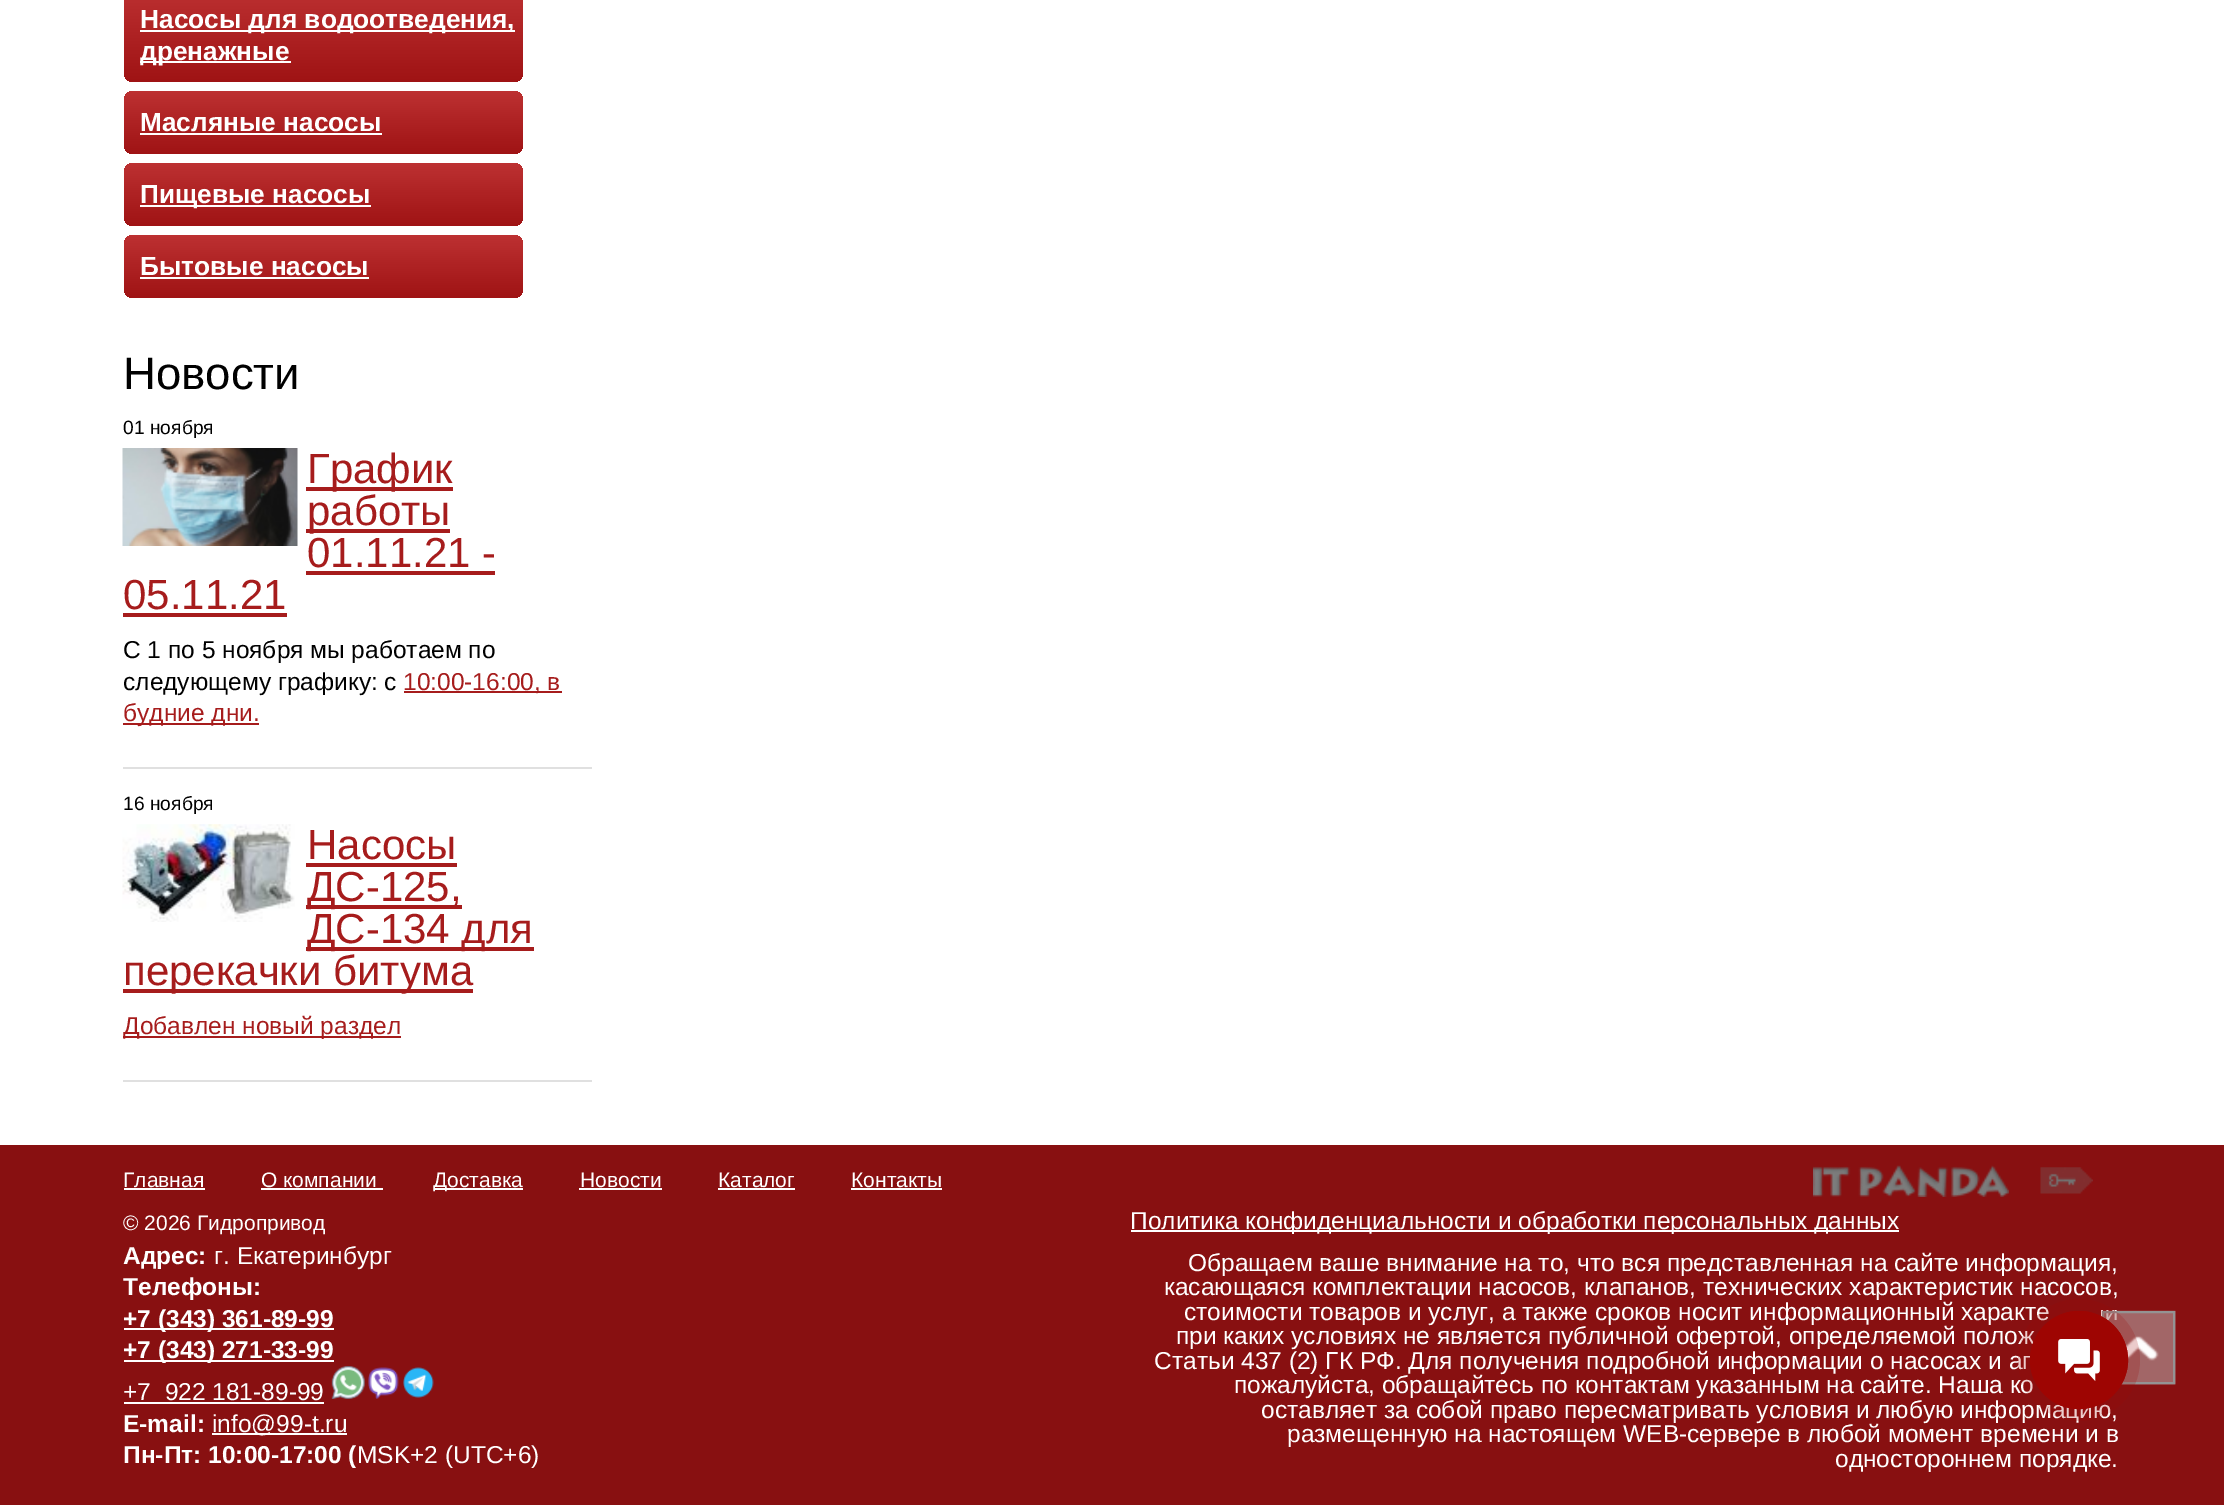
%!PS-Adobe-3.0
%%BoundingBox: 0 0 2224 1505
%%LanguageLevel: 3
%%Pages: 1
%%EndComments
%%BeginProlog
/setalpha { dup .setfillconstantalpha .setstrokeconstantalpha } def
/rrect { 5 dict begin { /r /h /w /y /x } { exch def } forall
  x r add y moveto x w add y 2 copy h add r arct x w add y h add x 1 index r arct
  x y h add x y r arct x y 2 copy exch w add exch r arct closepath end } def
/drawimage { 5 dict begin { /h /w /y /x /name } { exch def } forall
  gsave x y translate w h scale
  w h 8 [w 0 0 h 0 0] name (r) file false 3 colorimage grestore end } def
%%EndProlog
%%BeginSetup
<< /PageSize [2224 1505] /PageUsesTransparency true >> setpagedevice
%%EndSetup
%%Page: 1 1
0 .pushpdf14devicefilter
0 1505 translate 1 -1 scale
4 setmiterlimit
1 setgray
0 0 2224 1505 rectfill
gsave 124 -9 399 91 9 rrect clip newpath
<< /ShadingType 2 /ColorSpace /DeviceRGB /Coords [324 -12 324 82] /Extend [true true] /Function << /FunctionType 2 /Domain [0 1] /C0 [0.741 0.192 0.196] /C1 [0.624 0.075 0.078] /N 1 >> >> shfill grestore
140 30 375 2 rectfill
140 61 151 2 rectfill
gsave 124 91 399 63 9 rrect clip newpath
<< /ShadingType 2 /ColorSpace /DeviceRGB /Coords [324 91 324 154] /Extend [true true] /Function << /FunctionType 2 /Domain [0 1] /C0 [0.741 0.192 0.196] /C1 [0.624 0.075 0.078] /N 1 >> >> shfill grestore
140 133 242 2 rectfill
gsave 124 163 399 63 9 rrect clip newpath
<< /ShadingType 2 /ColorSpace /DeviceRGB /Coords [324 163 324 226] /Extend [true true] /Function << /FunctionType 2 /Domain [0 1] /C0 [0.741 0.192 0.196] /C1 [0.624 0.075 0.078] /N 1 >> >> shfill grestore
140 205 231 2 rectfill
gsave 124 235 399 63 9 rrect clip newpath
<< /ShadingType 2 /ColorSpace /DeviceRGB /Coords [324 235 324 298] /Extend [true true] /Function << /FunctionType 2 /Domain [0 1] /C0 [0.741 0.192 0.196] /C1 [0.624 0.075 0.078] /N 1 >> >> shfill grestore
140 277 229 2 rectfill
0.878 setgray
123 767 469 2 rectfill
(images/1.raw) 122 448 176 98 drawimage
0.651 0.11 0.11 setrgbcolor
306 487 147 4 rectfill
306 529 144 4 rectfill
306 571 189 4 rectfill
123 613 164 4 rectfill
404 691 158 2 rectfill
123 723 136 2 rectfill
0.878 setgray
123 1080 469 2 rectfill
(images/2.raw) 122 824 173 98 drawimage
0.651 0.11 0.11 setrgbcolor
306 863 151 4 rectfill
306 905 156 4 rectfill
306 947 228 4 rectfill
123 989 350 4 rectfill
123 1036 278 2 rectfill
0.533 0.063 0.067 setrgbcolor
0 1145 2224 360 rectfill
1 setgray
124 1188 81 2 rectfill
261 1188 122 2 rectfill
434 1188 89 2 rectfill
579 1188 83 2 rectfill
718 1188 77 2 rectfill
851 1188 91 2 rectfill
(images/3.raw) 1813 1165 196 32 drawimage
(images/4.raw) 2040 1167 53 27 drawimage
124 1328 210 2 rectfill
124 1360 210 2 rectfill
124 1402 200 2 rectfill
(images/5.raw) 331 1366 34 33 drawimage
(images/6.raw) 368 1367 31 32 drawimage
(images/7.raw) 403 1367 31 31 drawimage
212 1433 135 2 rectfill
1131 1230 768 2 rectfill
(images/9.raw) 2101 1310 75 75 drawimage
0.99 setalpha
0.58 setgray
2 setlinewidth
2103 1312 71 71 rectstroke
/LiberationSans-Bold [26.25 0 0 -26.25 0 0] selectfont
1 setalpha
1 setgray
140 28 moveto (Насосы для водоотведения,) show
140 60 moveto (дренажные) show
140 131 moveto (Масляные насосы) show
140 203 moveto (Пищевые насосы) show
140 275 moveto (Бытовые насосы) show
/LiberationSans-Regular [45.5 0 0 -45.5 0 0] selectfont
0 setgray
123 389 moveto (Новости) show
/LiberationSans-Regular [19.25 0 0 -19.25 0 0] selectfont
123 434 moveto (01 ноября) show
/LiberationSans-Regular [42 0 0 -42 0 0] selectfont
0.651 0.11 0.11 setrgbcolor
307 483 moveto (График) show
307 525 moveto (работы) show
307 567 moveto (01.11.21 -) show
123 609 moveto (05.11.21) show
/LiberationSans-Regular [24.5 0 0 -24.5 0 0] selectfont
0 setgray
123 658 moveto (С 1 по 5 ноября мы работаем по) show
123 690 moveto (следующему графику: с) show
0.651 0.11 0.11 setrgbcolor
403 690 moveto (10:00-16:00, в) show
123 721 moveto (будние дни.) show
/LiberationSans-Regular [19.25 0 0 -19.25 0 0] selectfont
0 setgray
123 810 moveto (16 ноября) show
/LiberationSans-Regular [42 0 0 -42 0 0] selectfont
0.651 0.11 0.11 setrgbcolor
307 859 moveto (Насосы) show
307 901 moveto (ДС-125,) show
307 943 moveto (ДС-134 для) show
123 985 moveto (перекачки битума) show
/LiberationSans-Regular [24.5 0 0 -24.5 0 0] selectfont
123 1034 moveto (Добавлен новый раздел) show
/LiberationSans-Regular [21 0 0 -21 0 0] selectfont
1 setgray
123 1187 moveto (Главная) show
261 1187 moveto (О компании) show
433 1187 moveto (Доставка) show
580 1187 moveto (Новости) show
718 1187 moveto (Каталог) show
851 1187 moveto (Контакты) show
123 1230 moveto (© 2026 Гидропривод) show
/LiberationSans-Bold [24.5 0 0 -24.5 0 0] selectfont
123 1264 moveto (Адрес:) show
/LiberationSans-Regular [24.5 0 0 -24.5 0 0] selectfont
214 1264 moveto (г. Екатеринбург) show
/LiberationSans-Bold [24.5 0 0 -24.5 0 0] selectfont
123 1295 moveto (Телефоны:) show
123 1327 moveto (+7 \(343\) 361-89-99) show
123 1358 moveto (+7 \(343\) 271-33-99) show
/LiberationSans-Regular [24.5 0 0 -24.5 0 0] selectfont
123 1400 moveto (+7  922 181-89-99) show
/LiberationSans-Bold [24.5 0 0 -24.5 0 0] selectfont
123 1432 moveto (E-mail:) show
/LiberationSans-Regular [24.5 0 0 -24.5 0 0] selectfont
212 1432 moveto (info@99-t.ru) show
/LiberationSans-Bold [24.5 0 0 -24.5 0 0] selectfont
123 1463 moveto (Пн-Пт: 10:00-17:00 \() show
/LiberationSans-Regular [24.5 0 0 -24.5 0 0] selectfont
357 1463 moveto (MSK+2 \(UTC+6\)) show
1130 1229 moveto (Политика конфиденциальности и обработки персональных данных) show
1188 1271 moveto (Обращаем ваше внимание на то, что вся представленная на сайте информация,) show
1164 1295 moveto (касающаяся комплектации насосов, клапанов, технических характеристик насосов,) show
1184 1320 moveto (стоимости товаров и услуг, а также сроков носит информационный характе) show
1176 1344 moveto (при каких условиях не является публичной офертой, определяемой полож) show
1154 1369 moveto (Статьи 437 \(2\) ГК РФ. Для получения подробной информации о насосах и аг) show
1234 1393 moveto (пожалуйста, обращайтесь по контактам указанным на сайте. Наша ко) show
1261 1418 moveto (оставляет за собой право пересматривать условия и любую информацию,) show
1287 1442 moveto (размещенную на настоящем WEB-сервере в любой момент времени и в) show
1835 1467 moveto (одностороннем порядке.) show
0.2 setalpha
0.62 0.02 0.008 setrgbcolor
newpath 2079 1360 61 0 360 arc closepath fill
1 setalpha
1 setlinewidth
newpath 2079 1360 48.5 0 360 arc closepath stroke
newpath 2079 1360 49 0 360 arc closepath fill
(images/8.raw) 2058 1339 42 42 drawimage
.poppdf14devicefilter showpage
%%EOF
